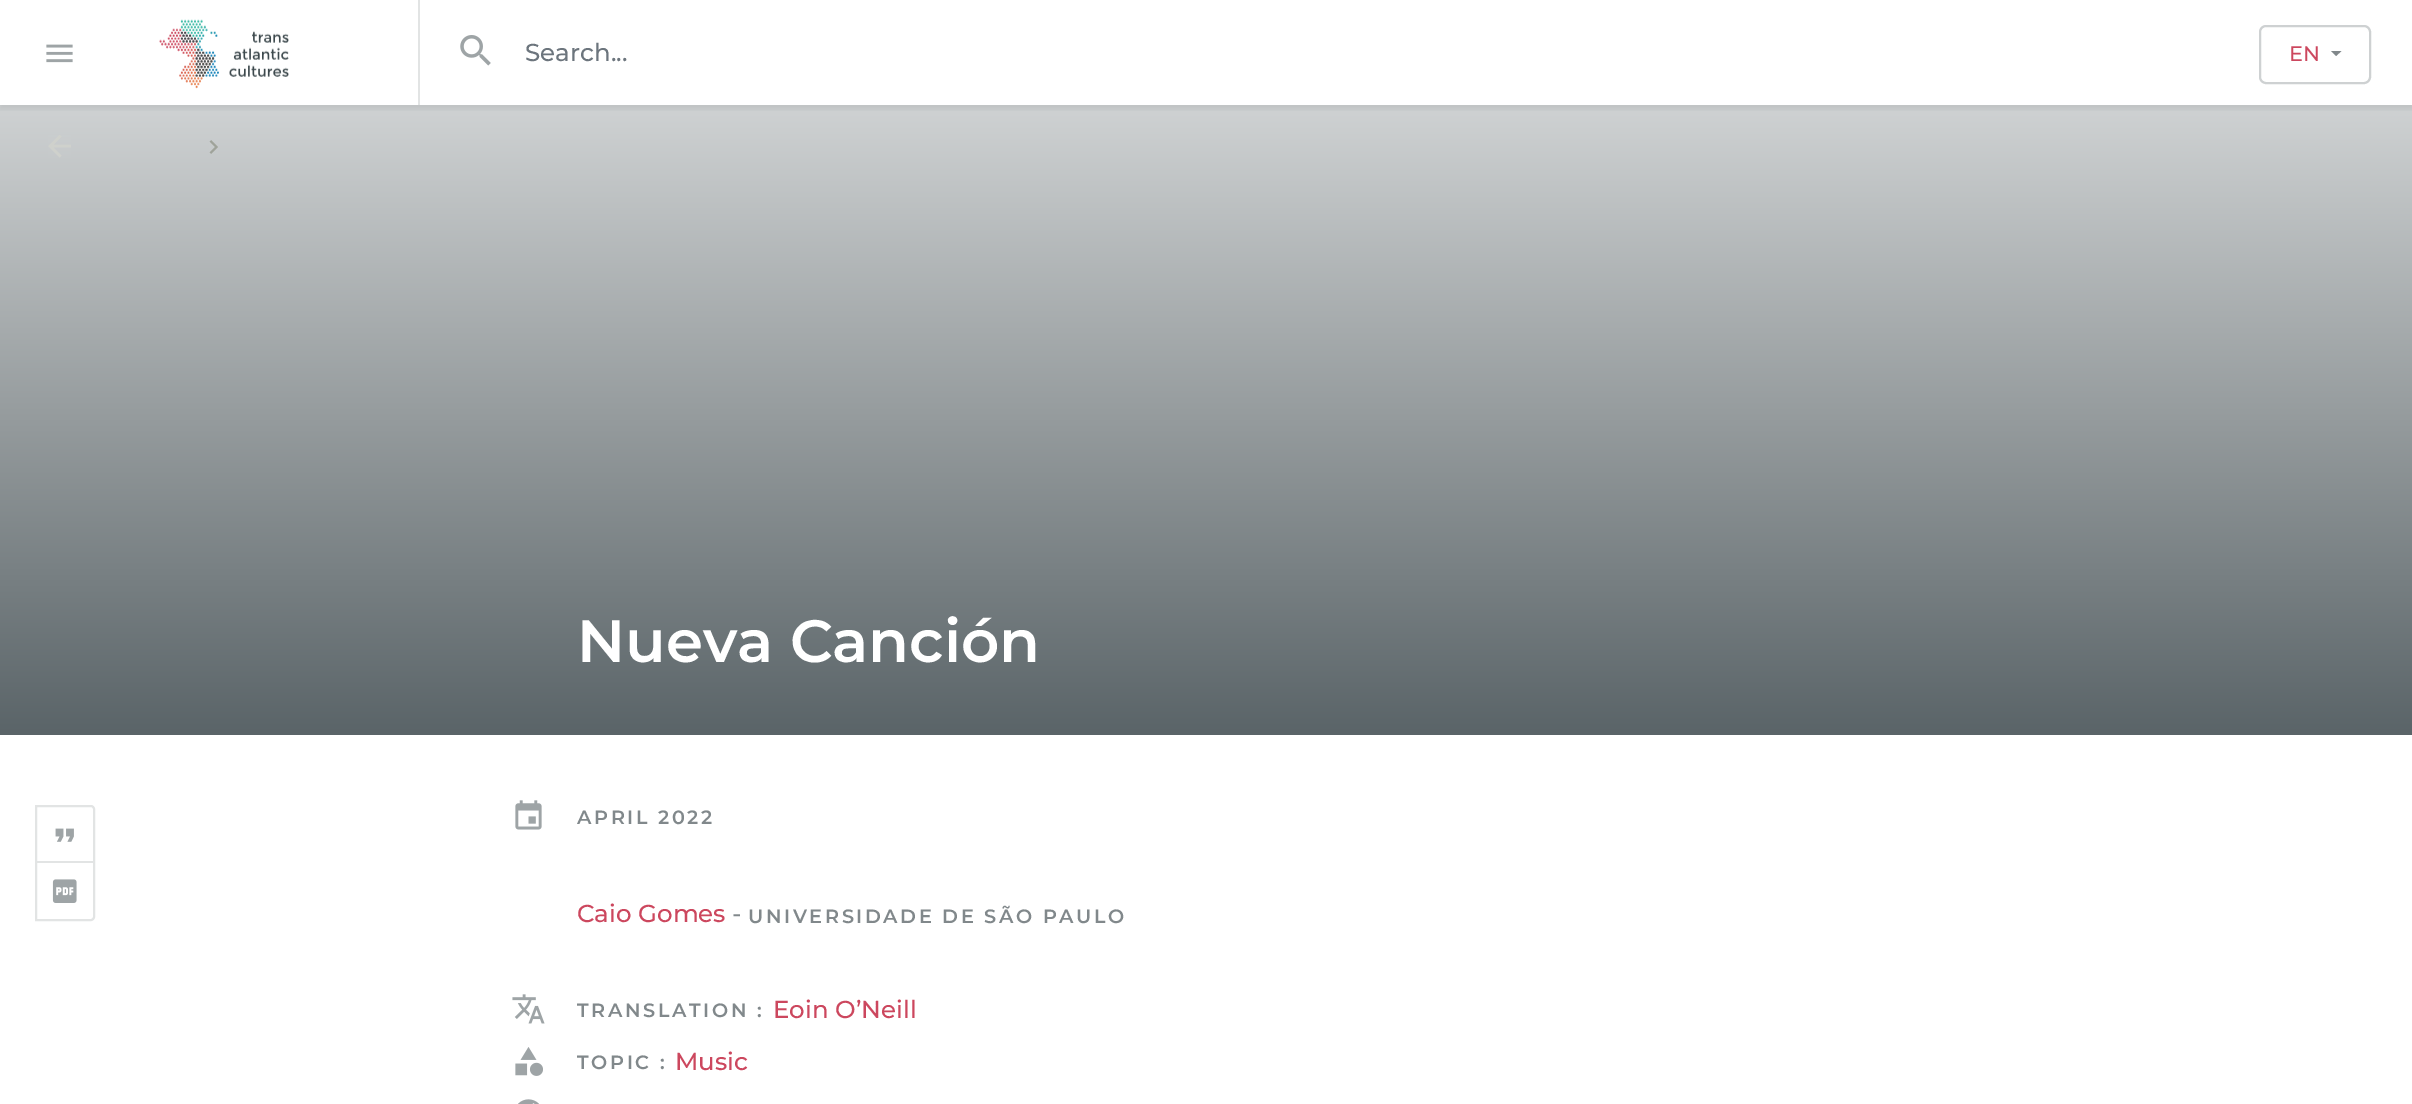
%!PS-Adobe-3.0
%%BoundingBox: 0 0 2412 1104
%%LanguageLevel: 3
%%Pages: 1
%%EndComments
%%BeginProlog
/setalpha { dup .setfillconstantalpha .setstrokeconstantalpha } def
/rrect { 5 dict begin { /r /h /w /y /x } { exch def } forall
  x r add y moveto x w add y 2 copy h add r arct x w add y h add x 1 index r arct
  x y h add x y r arct x y 2 copy exch w add exch r arct closepath end } def
/softshadow { 12 dict begin { /a /b /q /h /w /y /x } { exch def } forall gsave /was 0 def
  9 -2 -9 { dup b mul 4 div /e exch def 1 sub .425 mul 2.718 exch exp 1 add a .99 .min exch div /now exch def
    1 1 now sub 1 was sub div sub setalpha /was now def
    w h .min e 2 mul add 0 gt { x e sub y e sub w e 2 mul add h e 2 mul add
      q e add b .6 mul add w h .min 2 div e add .min 0 .max rrect fill } if } for grestore end } def
/drawimage { 5 dict begin { /h /w /y /x /name } { exch def } forall
  gsave x y translate w h scale
  w h 8 [w 0 0 h 0 0] name (r) file false 3 colorimage grestore end } def
%%EndProlog
%%BeginSetup
<< /PageSize [2412 1104] /PageUsesTransparency true >> setpagedevice
%%EndSetup
%%Page: 1 1
0 .pushpdf14devicefilter
0 1104 translate 1 -1 scale
4 setmiterlimit
1 setgray
0 0 2412 1104 rectfill
gsave newpath 0 105 moveto 2412 105 lineto 2412 735 lineto 0 735 lineto closepath clip newpath
<< /ShadingType 2 /ColorSpace /DeviceRGB /Coords [1207 105 1207 735] /Extend [true true] /Function << /FunctionType 2 /Domain [0 1] /C0 [0.812 0.824 0.827] /C1 [0.353 0.392 0.408] /N 1 >> >> shfill grestore
gsave
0 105 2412 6 rectclip
0 setgray
0 4 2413 105 0 3.5 0.07 softshadow
grestore
0.886 0.894 0.894 setrgbcolor
418 0 2 105 rectfill
(images/1.raw) 46 44 27 19 drawimage
(images/2.raw) 159 19 130 70 drawimage
(images/3.raw) 460 35 31 31 drawimage
0.808 0.82 0.824 setrgbcolor
2 setlinewidth
2260 26 110 57 6 rrect stroke
0.506 0.533 0.545 setrgbcolor
newpath 2331 51 moveto 2341.5 51 lineto 2336 56 lineto closepath fill
(images/4.raw) 48 135 23 23 drawimage
(images/5.raw) 209 140 9 14 drawimage
0.886 0.894 0.894 setrgbcolor
newpath 36 806 moveto 91 806 lineto 92.5 806 94 807.5 94 809 curveto 94 917 lineto 94 918.5 92.5 920 91 920 curveto 36 920 lineto closepath stroke
37 861 56 2 rectfill
(images/6.raw) 55 828 19 14 drawimage
(images/7.raw) 52 879 25 24 drawimage
(images/8.raw) 515 800 27 30 drawimage
(images/9.raw) 512 994 33 30 drawimage
(images/10.raw) 515 1047 28 29 drawimage
(images/11.raw) 518 1099 21 5 drawimage
/Montserrat-Medium [24.5 0 0 -24.5 0 0] selectfont
0.424 0.459 0.49 setrgbcolor
525 61 moveto (Search...) show
/Montserrat-Medium [21 0 0 -21 0 0] selectfont
0.8 0.278 0.369 setrgbcolor
2289 61 moveto (EN) show
/Montserrat-SemiBold [59.5 0 0 -59.5 0 0] selectfont
1 setgray
577 662 moveto (Nueva Canción) show
/Montserrat-SemiBold [19.25 0 0 -19.25 0 0] selectfont
0.506 0.533 0.545 setrgbcolor
577 824 moveto 2.6 0 (APRIL 2022) ashow
/Montserrat-Medium [24.5 0 0 -24.5 0 0] selectfont
0.8 0.278 0.369 setrgbcolor
577 922 moveto (Caio Gomes) show
0.506 0.533 0.545 setrgbcolor
732 922 moveto (-) show
/Montserrat-SemiBold [19.25 0 0 -19.25 0 0] selectfont
748 923 moveto 2.6 0 (UNIVERSIDADE DE SÃO PAULO) ashow
577 1017 moveto 2.6 0 (TRANSLATION :) ashow
/Montserrat-Medium [24.5 0 0 -24.5 0 0] selectfont
0.8 0.278 0.369 setrgbcolor
773 1018 moveto (Eoin O’Neill) show
/Montserrat-SemiBold [19.25 0 0 -19.25 0 0] selectfont
0.506 0.533 0.545 setrgbcolor
577 1069 moveto 2.6 0 (TOPIC :) ashow
/Montserrat-Medium [24.5 0 0 -24.5 0 0] selectfont
0.8 0.278 0.369 setrgbcolor
675 1070 moveto (Music) show
.poppdf14devicefilter showpage
%%EOF
